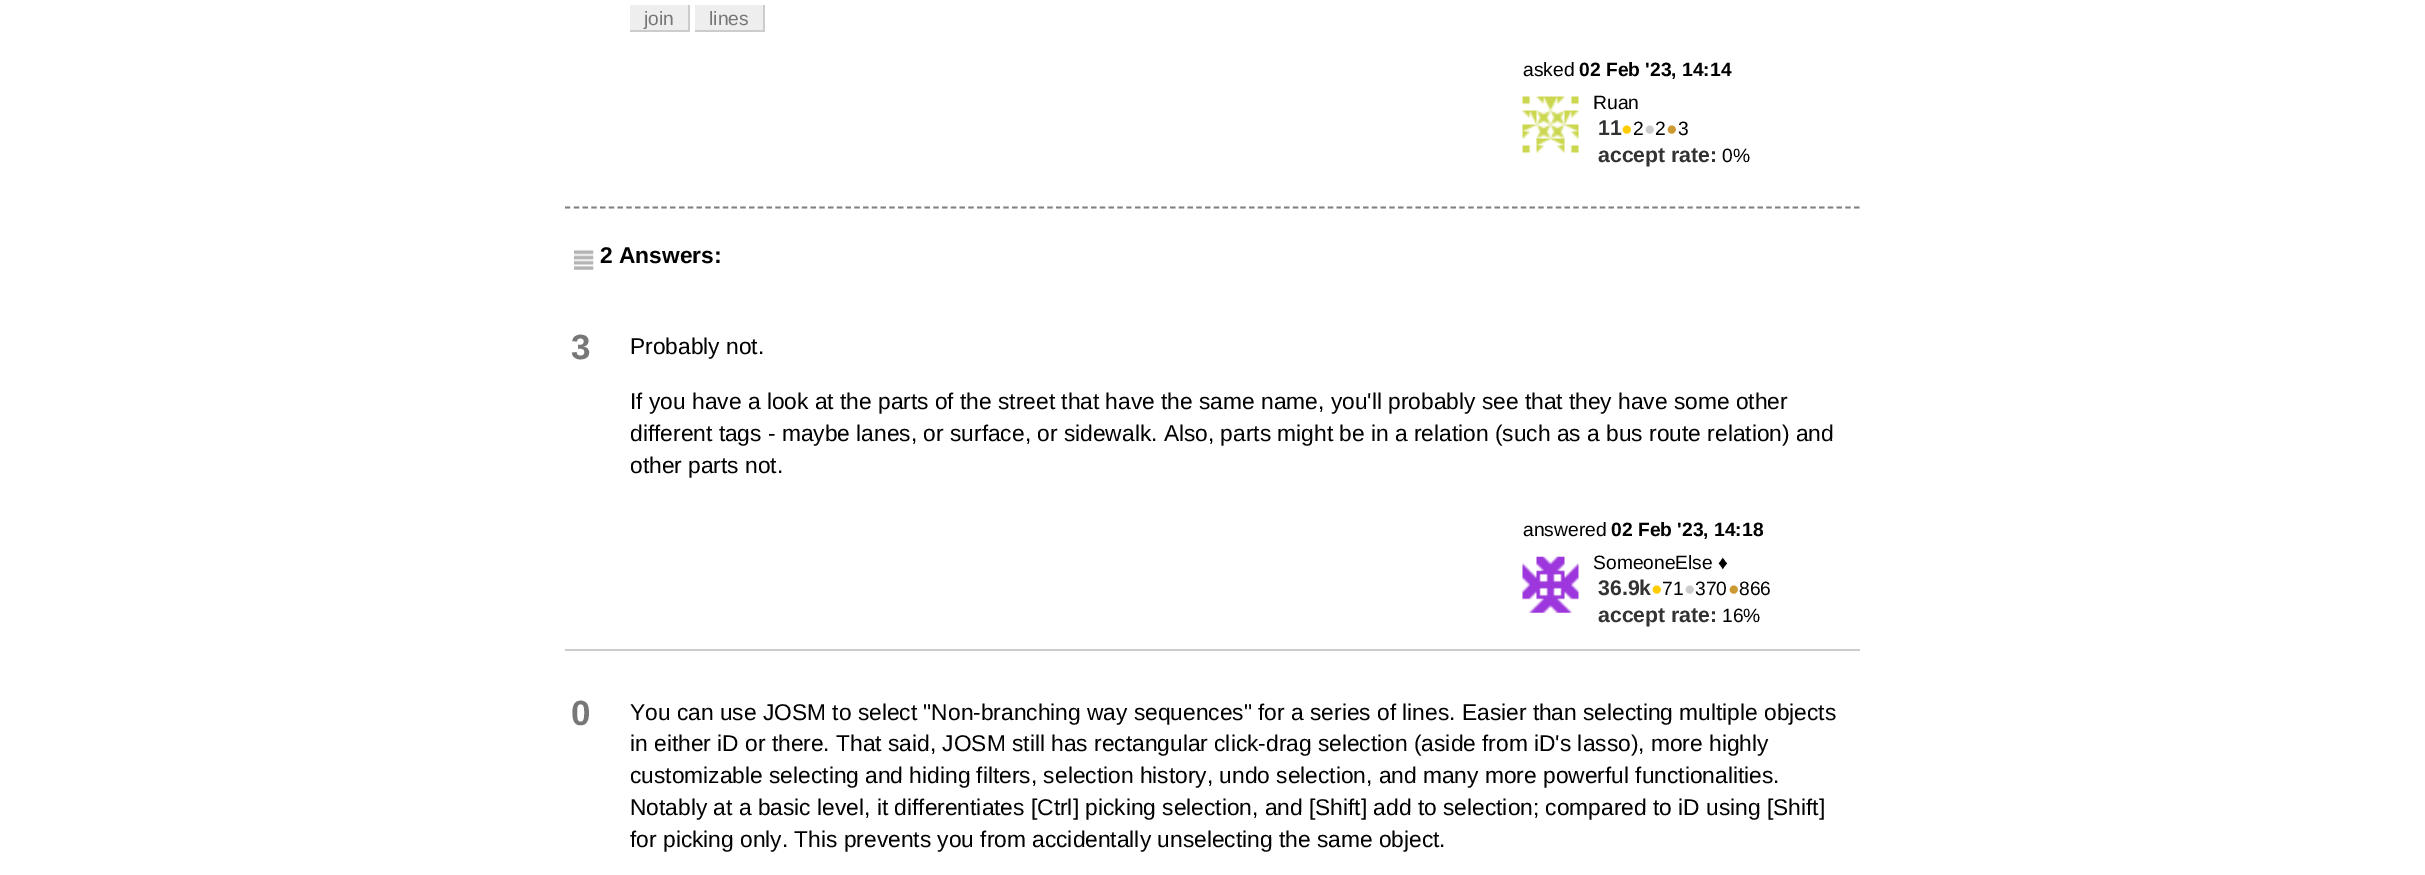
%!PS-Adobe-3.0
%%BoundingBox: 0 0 2425 875
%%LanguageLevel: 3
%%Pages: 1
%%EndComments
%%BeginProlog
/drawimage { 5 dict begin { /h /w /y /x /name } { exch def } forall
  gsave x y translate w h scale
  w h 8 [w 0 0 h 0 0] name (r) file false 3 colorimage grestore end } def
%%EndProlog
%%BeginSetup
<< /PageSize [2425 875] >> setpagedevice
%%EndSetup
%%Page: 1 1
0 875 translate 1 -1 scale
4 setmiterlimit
1 setgray
0 0 2425 875 rectfill
0.933 setgray
630 5 58 25 rectfill
0.8 setgray
688 5 2 27 rectfill
630 30 60 2 rectfill
0.933 setgray
695 5 68 25 rectfill
0.8 setgray
763 5 2 27 rectfill
695 30 70 2 rectfill
(images/1.raw) 1522 96 57 57 drawimage
0.502 setgray
1.8 setlinewidth
[5.25 3.52] 0 setdash
newpath 565 207.5 moveto 1860 207.5 lineto stroke
(images/2.raw) 574 250 20 20 drawimage
0.8 0.8 0.808 setrgbcolor
565 649 1295 2 rectfill
(images/3.raw) 1522 556 57 57 drawimage
/LiberationSans-Regular [19.25 0 0 -19.25 0 0] selectfont
0.467 setgray
644 25 moveto (join) show
709 25 moveto (lines) show
0 setgray
1523 76 moveto (asked) show
/LiberationSans-Bold [19.25 0 0 -19.25 0 0] selectfont
1579 76 moveto (02 Feb '23, 14:14) show
/LiberationSans-Regular [19.25 0 0 -19.25 0 0] selectfont
1593 109 moveto (Ruan) show
/LiberationSans-Bold [21.25 0 0 -21.25 0 0] selectfont
0.2 setgray
1598 135 moveto (11) show
/LiberationSans-Regular [19.25 0 0 -19.25 0 0] selectfont
1 0.8 0 setrgbcolor
1621 135 moveto (●) show
0 setgray
1633 135 moveto (2) show
0.8 setgray
1644 135 moveto (●) show
0 setgray
1655 135 moveto (2) show
0.8 0.6 0.2 setrgbcolor
1666 135 moveto (●) show
0 setgray
1678 135 moveto (3) show
/LiberationSans-Bold [21.25 0 0 -21.25 0 0] selectfont
0.2 setgray
1598 162 moveto (accept rate:) show
/LiberationSans-Regular [19.25 0 0 -19.25 0 0] selectfont
0 setgray
1722 162 moveto (0%) show
/LiberationSans-Bold [22.75 0 0 -22.75 0 0] selectfont
600 263 moveto (2 Answers:) show
/LiberationSans-Bold [35 0 0 -35 0 0] selectfont
0.467 setgray
571 359 moveto (3) show
/LiberationSans-Regular [22.75 0 0 -22.75 0 0] selectfont
0 setgray
630 354 moveto (Probably not.) show
630 409 moveto (If you have a look at the parts of the street that have the same name, you'll probably see that they have some other) show
630 441 moveto (different tags - maybe lanes, or surface, or sidewalk. Also, parts might be in a relation \(such as a bus route relation\) and) show
630 473 moveto (other parts not.) show
/LiberationSans-Regular [19.25 0 0 -19.25 0 0] selectfont
1523 536 moveto (answered) show
/LiberationSans-Bold [19.25 0 0 -19.25 0 0] selectfont
1611 536 moveto (02 Feb '23, 14:18) show
/LiberationSans-Regular [19.25 0 0 -19.25 0 0] selectfont
1593 569 moveto (SomeoneElse ♦) show
/LiberationSans-Bold [21.25 0 0 -21.25 0 0] selectfont
0.2 setgray
1598 595 moveto (36.9k) show
/LiberationSans-Regular [19.25 0 0 -19.25 0 0] selectfont
1 0.8 0 setrgbcolor
1651 595 moveto (●) show
0 setgray
1662 595 moveto (71) show
0.8 setgray
1684 595 moveto (●) show
0 setgray
1695 595 moveto (370) show
0.8 0.6 0.2 setrgbcolor
1728 595 moveto (●) show
0 setgray
1739 595 moveto (866) show
/LiberationSans-Bold [21.25 0 0 -21.25 0 0] selectfont
0.2 setgray
1598 622 moveto (accept rate:) show
/LiberationSans-Regular [19.25 0 0 -19.25 0 0] selectfont
0 setgray
1722 622 moveto (16%) show
/LiberationSans-Bold [35 0 0 -35 0 0] selectfont
0.467 setgray
571 725 moveto (0) show
/LiberationSans-Regular [22.75 0 0 -22.75 0 0] selectfont
0 setgray
630 720 moveto (You can use JOSM to select "Non-branching way sequences" for a series of lines. Easier than selecting multiple objects) show
630 751 moveto (in either iD or there. That said, JOSM still has rectangular click-drag selection \(aside from iD's lasso\), more highly) show
630 783 moveto (customizable selecting and hiding filters, selection history, undo selection, and many more powerful functionalities.) show
630 815 moveto (Notably at a basic level, it differentiates [Ctrl] picking selection, and [Shift] add to selection; compared to iD using [Shift]) show
630 847 moveto (for picking only. This prevents you from accidentally unselecting the same object.) show
showpage
%%EOF
